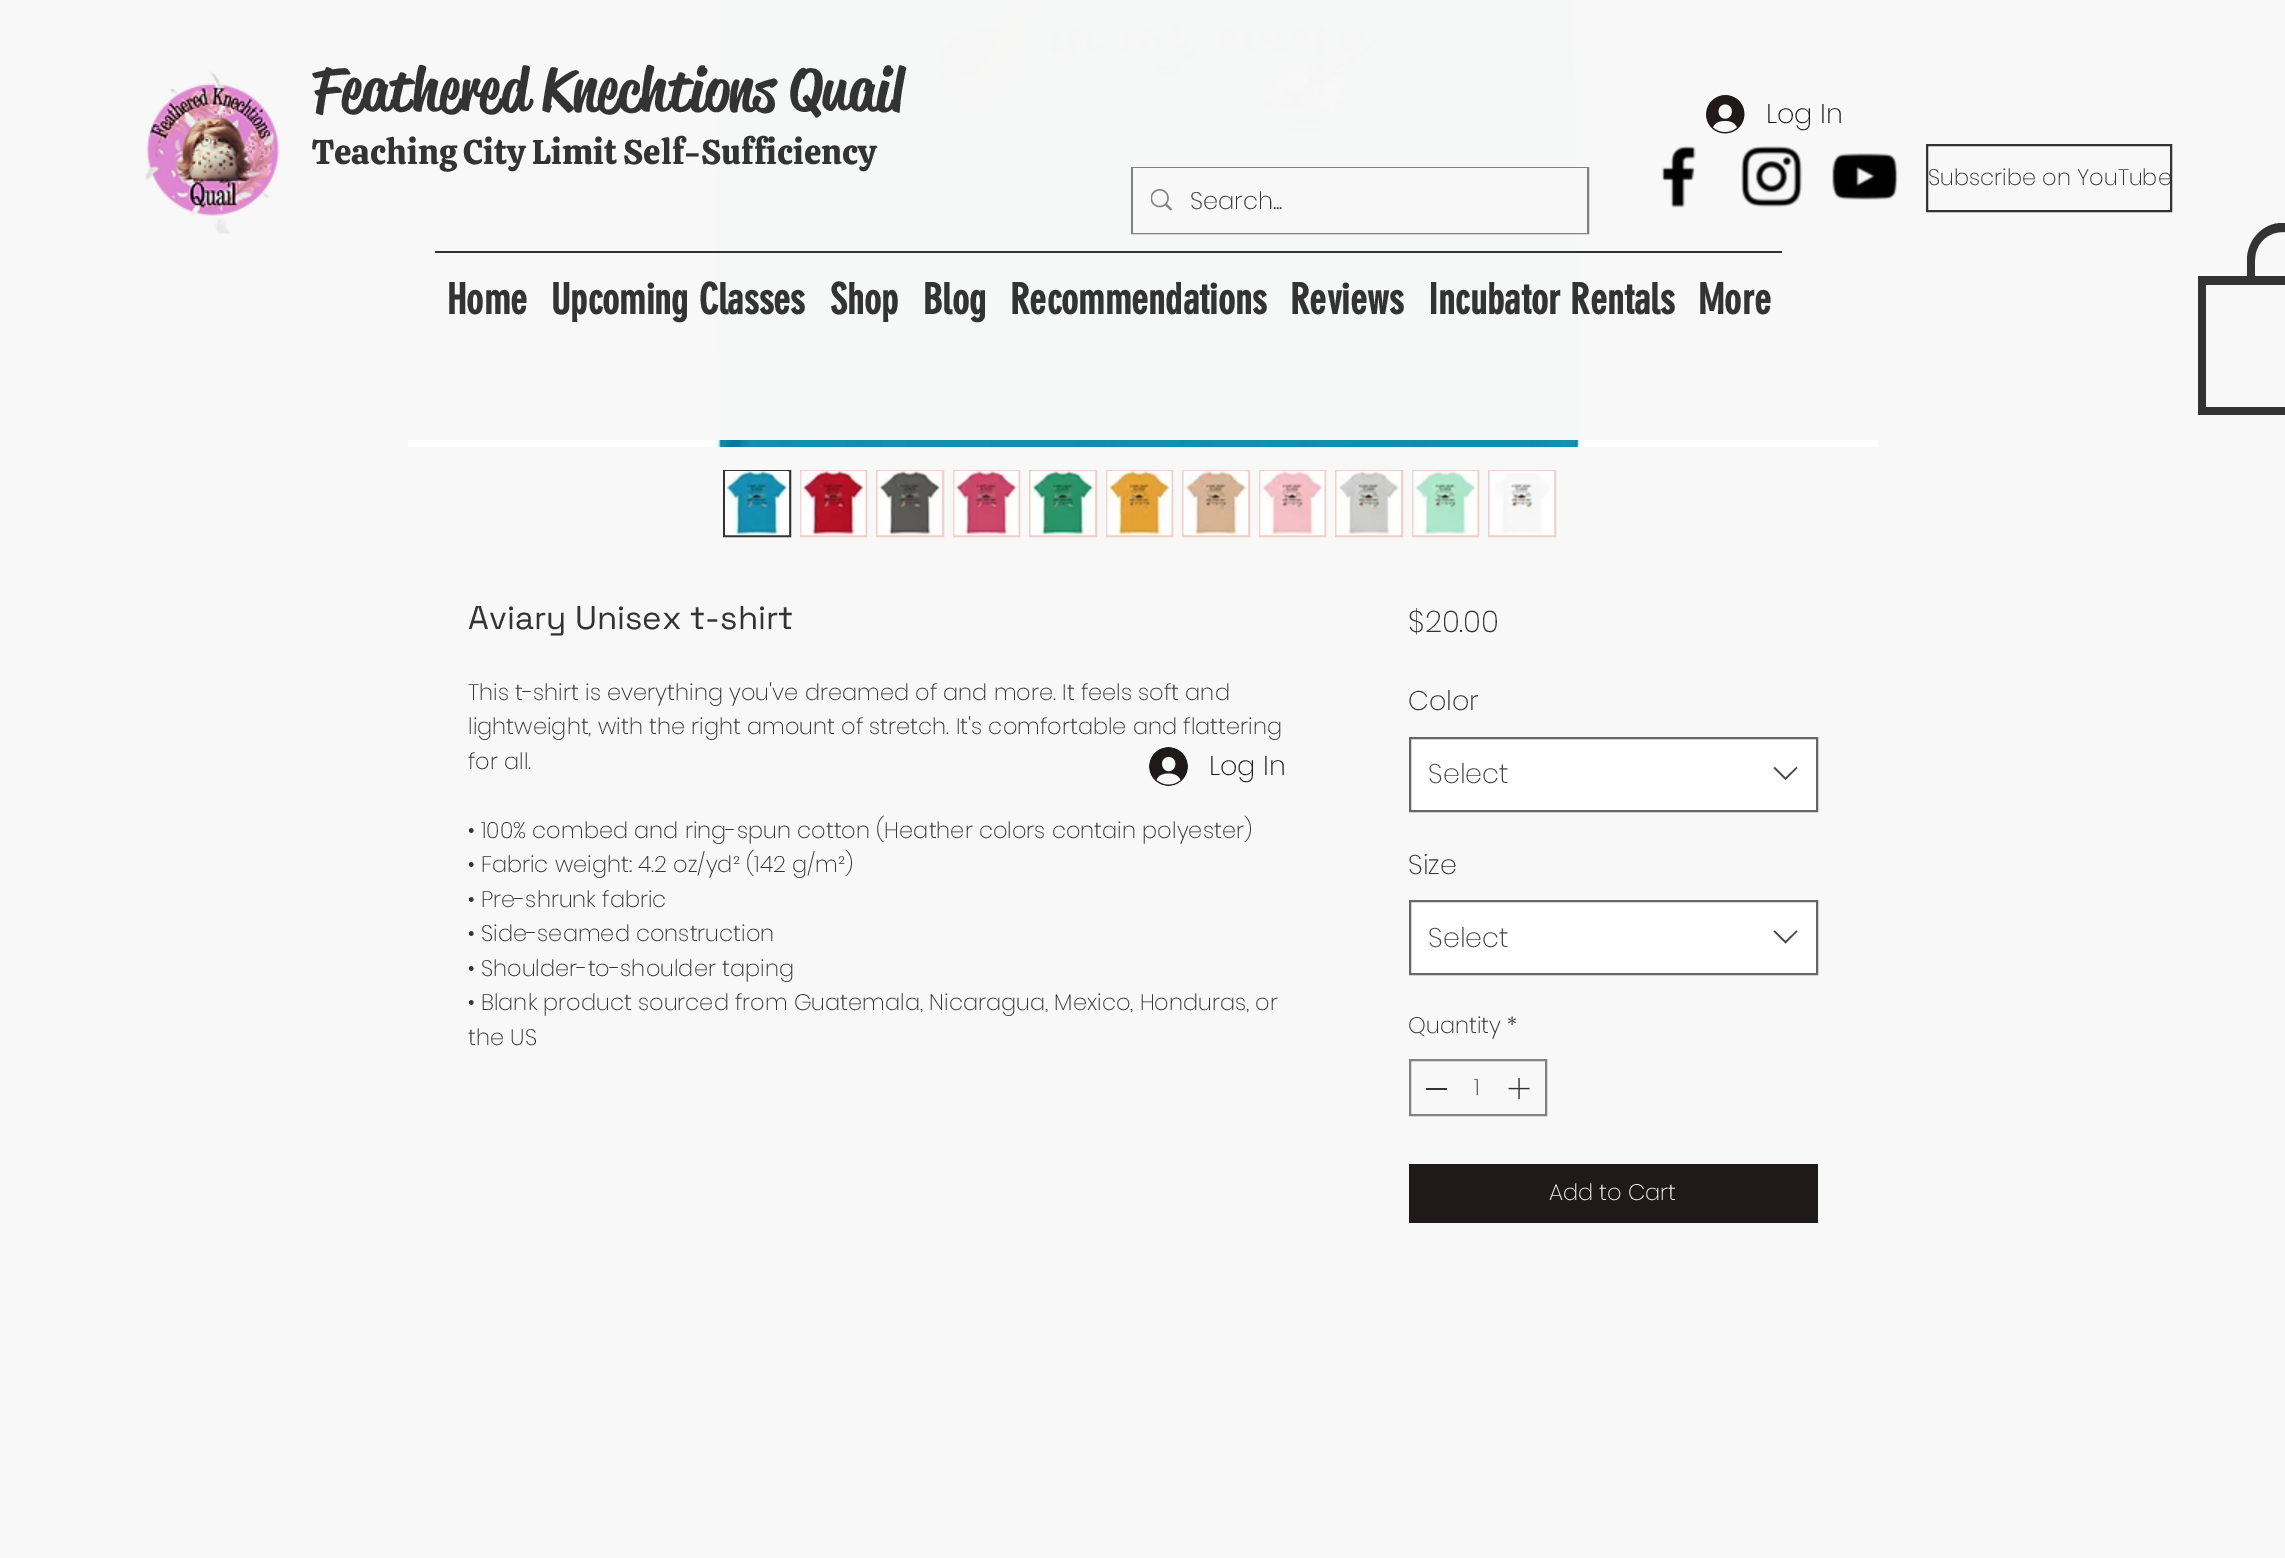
%!PS-Adobe-3.0
%%BoundingBox: 0 0 2285 1558
%%LanguageLevel: 3
%%Pages: 1
%%EndComments
%%BeginProlog
/drawimage { 5 dict begin { /h /w /y /x /name } { exch def } forall
  gsave x y translate w h scale
  w h 8 [w 0 0 h 0 0] name (r) file false 3 colorimage grestore end } def
%%EndProlog
%%BeginSetup
<< /PageSize [2285 1558] >> setpagedevice
%%EndSetup
%%Page: 1 1
0 1558 translate 1 -1 scale
4 setmiterlimit
0.973 setgray
0 0 2285 1558 rectfill
(images/1.raw) 145 71 135 163 drawimage
(images/8.raw) 408 0 1470 447 drawimage
(images/2.raw) 1661 146 35 62 drawimage
(images/3.raw) 1741 146 62 62 drawimage
(images/4.raw) 1832 153 66 47 drawimage
0.2 setgray
2 setlinewidth
1927 145 244 66 rectstroke
0.506 0.506 0.51 setrgbcolor
1132 168 456 65 rectstroke
0.973 setgray
1133 168 454 65 rectfill
(images/5.raw) 1151 189 21 22 drawimage
(images/6.raw) 1706 95 39 39 drawimage
0.2 setgray
435 251 1347 2 rectfill
newpath 2282 223 moveto 2263 223 2247 240 2247 260 curveto 2247 279 lineto 2255 279 lineto 2255 260 lineto 2255 244 2267 232 2283 232 curveto 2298 232 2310 244 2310 260 curveto 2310 279 lineto 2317 279 lineto 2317 278 lineto 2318 278 lineto 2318 260 lineto 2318 240 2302 223 2282 223 curveto closepath fill
newpath 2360 285 moveto 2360 407 lineto 2206 407 lineto 2206 285 lineto 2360 285 lineto 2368 276 moveto 2198 276 lineto 2198 415 lineto 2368 415 lineto closepath fill
(images/7.raw) 1149 747 39 39 drawimage
724 471 66 65 rectstroke
(images/9.raw) 725 471 65 65 drawimage
0.937 0.812 0.78 setrgbcolor
801 471 65 65 rectstroke
(images/10.raw) 800 471 66 65 drawimage
877 471 66 65 rectstroke
(images/11.raw) 877 471 66 65 drawimage
954 471 65 65 rectstroke
(images/12.raw) 953 471 66 65 drawimage
1030 471 66 65 rectstroke
(images/13.raw) 1030 471 66 65 drawimage
1107 471 65 65 rectstroke
(images/14.raw) 1106 471 66 65 drawimage
1183 471 66 65 rectstroke
(images/15.raw) 1183 471 66 65 drawimage
1260 471 65 65 rectstroke
(images/16.raw) 1259 471 66 65 drawimage
1336 471 66 65 rectstroke
(images/17.raw) 1336 471 66 65 drawimage
1413 471 65 65 rectstroke
(images/18.raw) 1412 471 66 65 drawimage
1489 471 66 65 rectstroke
(images/19.raw) 1489 471 66 65 drawimage
1 setgray
newpath 1410 738 moveto 1817 738 lineto 1817 811 lineto 1410 811 lineto closepath gsave fill grestore
0.4 setgray
stroke
0.267 setgray
newpath 1796.5 767 moveto 1797.5 768 lineto 1785.5 780 lineto 1773.5 768 lineto 1775 767 lineto 1785.5 777.5 lineto closepath eofill
1 setgray
newpath 1410 901 moveto 1817 901 lineto 1817 974 lineto 1410 974 lineto closepath gsave fill grestore
0.4 setgray
stroke
0.267 setgray
newpath 1796.5 930.5 moveto 1797.5 931.5 lineto 1785.5 943.5 lineto 1773.5 931.5 lineto 1775 930.5 lineto 1785.5 941 lineto closepath eofill
0.51 setgray
1410 1060 136 55 rectstroke
0.2 setgray
1426 1088 21 2 rectfill
(images/20.raw) 1508 1078 22 22 drawimage
0.125 0.098 0.102 setrgbcolor
1409 1164 409 59 rectfill
/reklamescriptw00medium-Medium [60 0 0 -60 0 0] selectfont
0.2 setgray
312 110 moveto (Feathered Knechtions Quail) show
/Calistoga-Regular [34.5 0 0 -34.5 0 0] selectfont
312 164 moveto (Teaching City Limit Self-Sufficiency) show
/Poppins-ExtraLight [22.5 0 0 -22.5 0 0] selectfont
1928 185 moveto (Subscribe on YouTube) show
/Poppins-ExtraLight [24 0 0 -24 0 0] selectfont
1190 209 moveto (Search...) show
/Poppins-ExtraLight [27 0 0 -27 0 0] selectfont
0.125 0.098 0.102 setrgbcolor
1766 123 moveto (Log In) show
/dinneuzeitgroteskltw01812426-Bold [42 0 0 -42 0 0] selectfont
0.2 setgray
447 314 moveto (Home) show
551 314 moveto (Upcoming Classes) show
830 314 moveto (Shop) show
923 314 moveto (Blog) show
1010 314 moveto (Recommendations) show
1290 314 moveto (Reviews) show
1428 314 moveto (Incubator Rentals) show
1698 314 moveto (More) show
/Poppins-ExtraLight [27 0 0 -27 0 0] selectfont
0.125 0.098 0.102 setrgbcolor
1209 775 moveto (Log In) show
/SpaceGrotesk-Regular [33 0 0 -33 0 0] selectfont
0.2 setgray
468 629 moveto (Aviary Unisex t-shirt) show
/Poppins-ExtraLight [22.5 0 0 -22.5 0 0] selectfont
468 700 moveto (This t-shirt is everything you've dreamed of and more. It feels soft and) show
468 734 moveto (lightweight, with the right amount of stretch. It's comfortable and flattering) show
468 769 moveto (for all.) show
468 838 moveto (• 100% combed and ring-spun cotton \(Heather colors contain polyester\)) show
468 872 moveto (• Fabric weight: 4.2 oz/yd² \(142 g/m²\)) show
468 907 moveto (• Pre-shrunk fabric) show
468 941 moveto (• Side-seamed construction) show
468 976 moveto (• Shoulder-to-shoulder taping) show
468 1010 moveto (• Blank product sourced from Guatemala, Nicaragua, Mexico, Honduras, or) show
468 1045 moveto (the US) show
/Poppins-ExtraLight [30 0 0 -30 0 0] selectfont
1408 632 moveto ($20.00) show
/Poppins-ExtraLight [27 0 0 -27 0 0] selectfont
1408 710 moveto (Color) show
0.267 setgray
1428 783 moveto (Select) show
0.2 setgray
1408 874 moveto (Size) show
0.267 setgray
1428 947 moveto (Select) show
/Poppins-ExtraLight [22.5 0 0 -22.5 0 0] selectfont
0.2 setgray
1408 1033 moveto (Quantity *) show
1474 1095 moveto (1) show
0.973 setgray
1549 1200 moveto (Add to Cart) show
showpage
%%EOF
